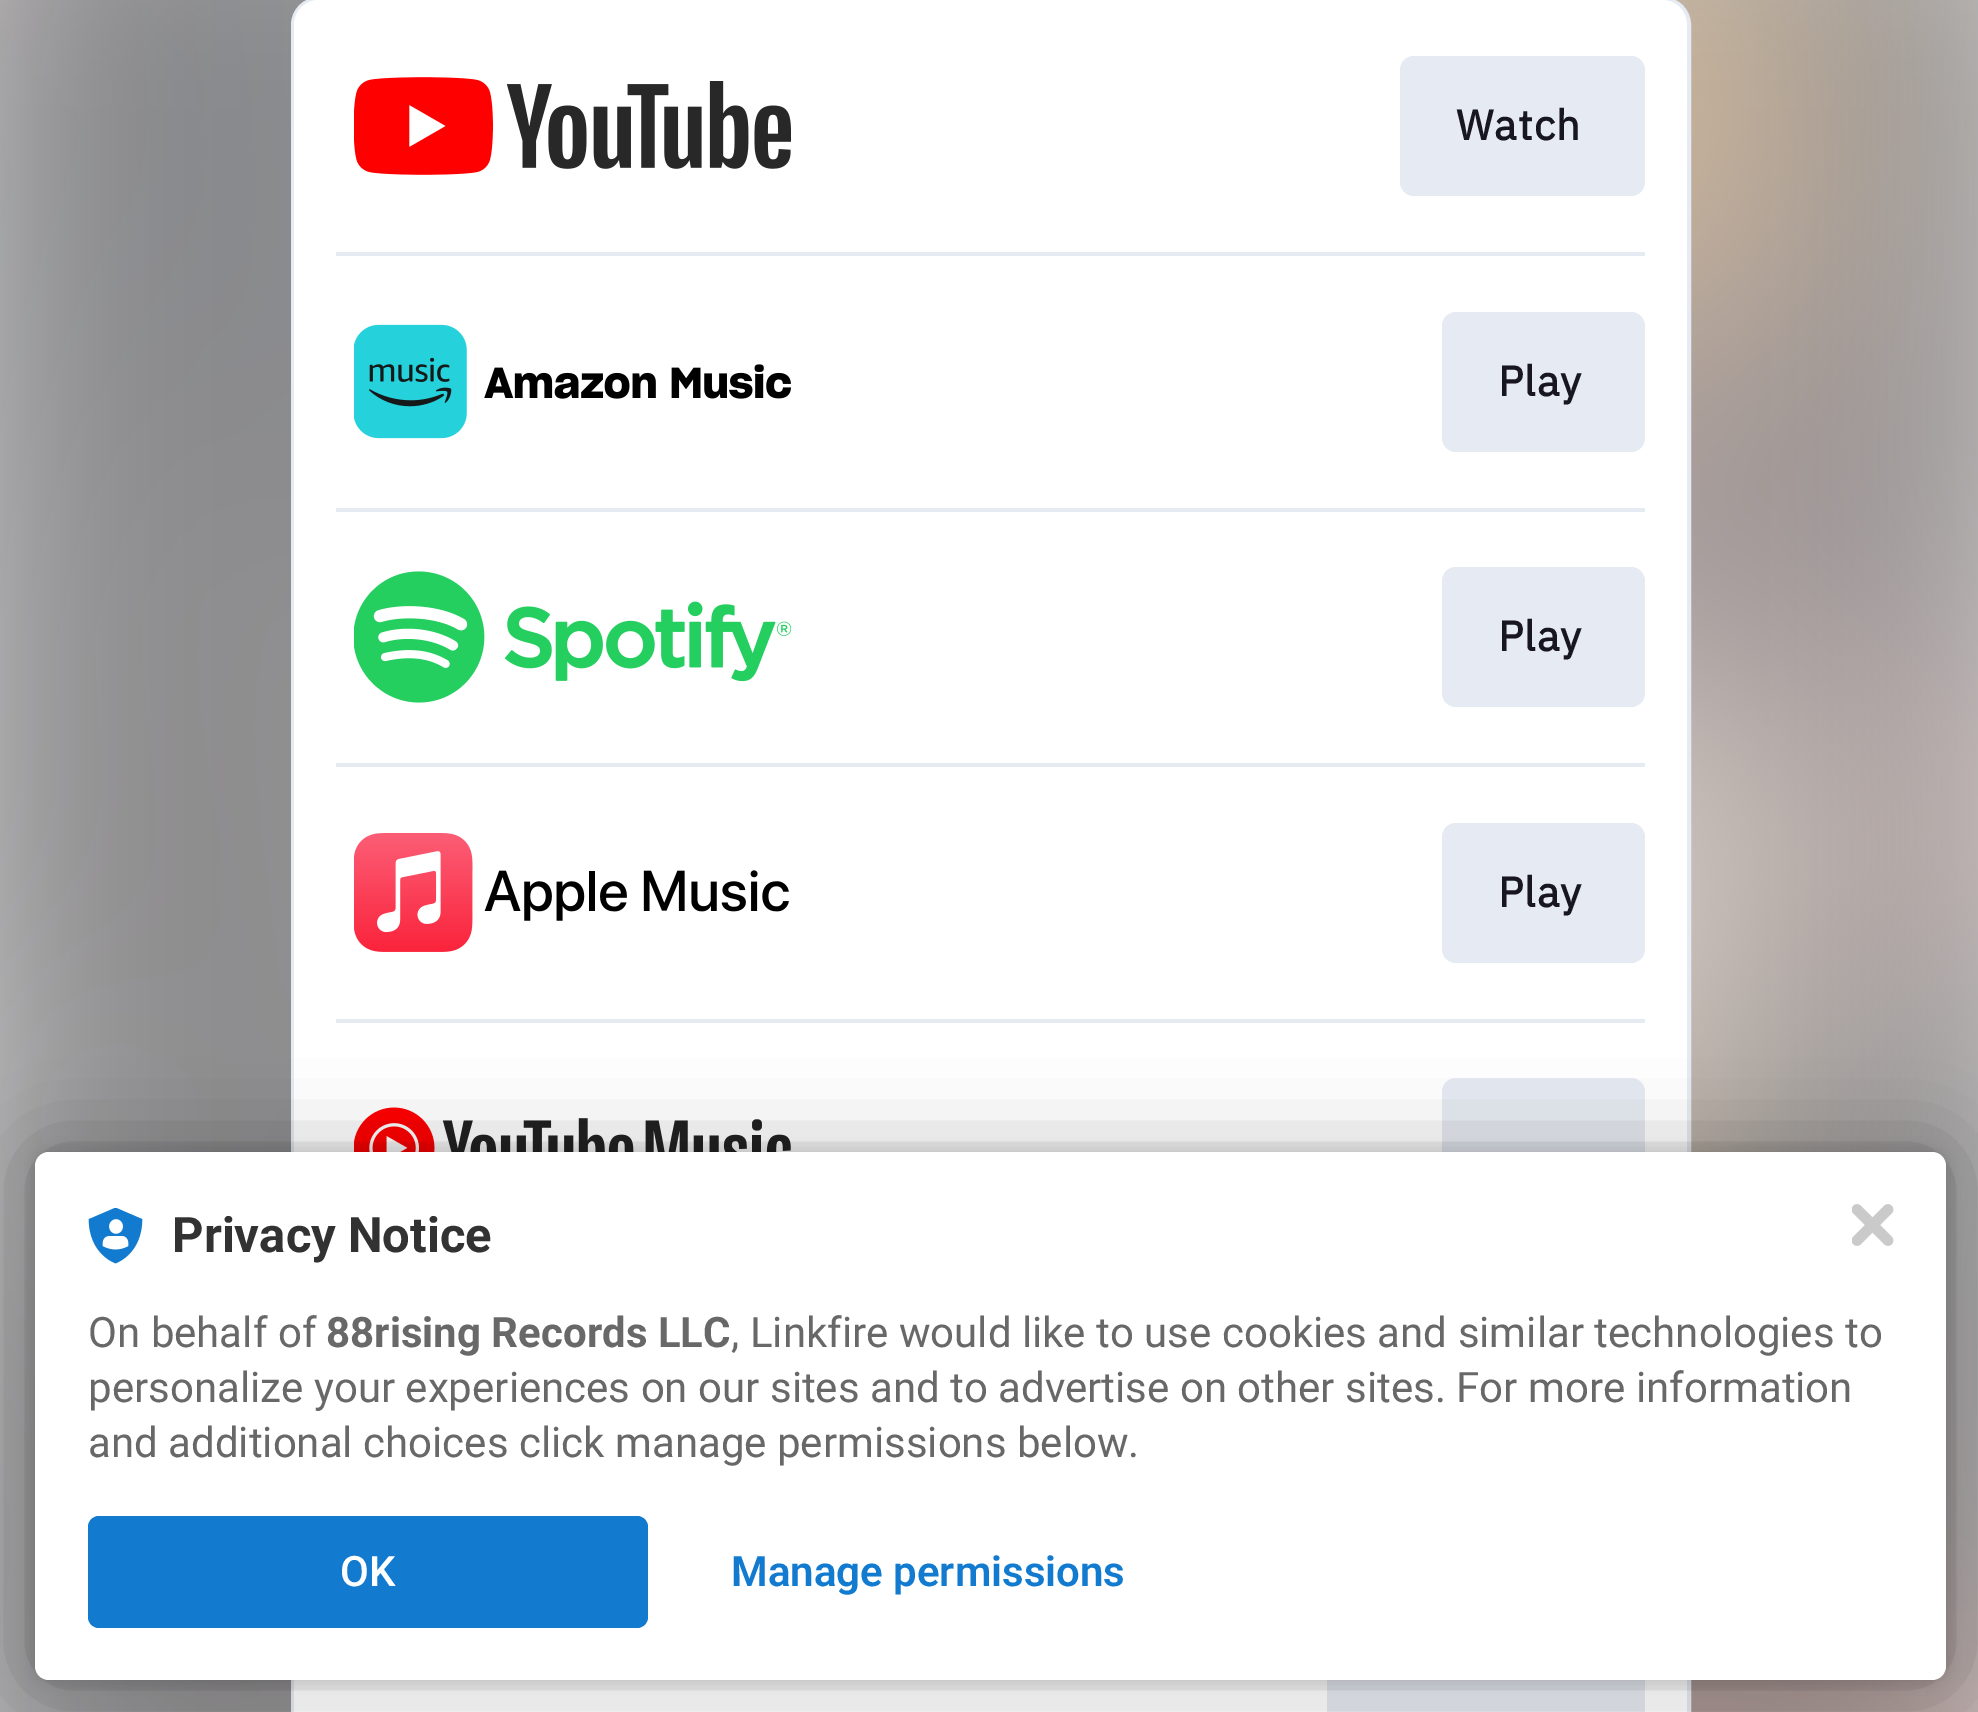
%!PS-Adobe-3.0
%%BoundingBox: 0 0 1978 1712
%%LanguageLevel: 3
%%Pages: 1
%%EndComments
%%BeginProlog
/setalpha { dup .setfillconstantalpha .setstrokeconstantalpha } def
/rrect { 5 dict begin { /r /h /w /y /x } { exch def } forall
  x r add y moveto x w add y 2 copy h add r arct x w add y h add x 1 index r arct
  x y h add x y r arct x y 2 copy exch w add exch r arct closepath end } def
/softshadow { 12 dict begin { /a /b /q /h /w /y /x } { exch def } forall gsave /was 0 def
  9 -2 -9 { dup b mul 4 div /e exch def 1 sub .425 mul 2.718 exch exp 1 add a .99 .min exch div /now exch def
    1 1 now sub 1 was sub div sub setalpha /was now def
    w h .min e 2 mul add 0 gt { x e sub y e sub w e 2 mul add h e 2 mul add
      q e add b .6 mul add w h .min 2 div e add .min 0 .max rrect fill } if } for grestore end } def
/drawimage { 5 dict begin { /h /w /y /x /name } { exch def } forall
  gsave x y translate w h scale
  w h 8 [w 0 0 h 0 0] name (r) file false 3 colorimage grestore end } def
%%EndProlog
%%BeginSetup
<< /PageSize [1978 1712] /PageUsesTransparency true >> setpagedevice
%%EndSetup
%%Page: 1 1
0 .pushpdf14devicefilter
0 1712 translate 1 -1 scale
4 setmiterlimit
1 setgray
0 0 1978 1712 rectfill
(images/1.raw) 0 0 1978 1712 drawimage
0.902 0.918 0.949 setrgbcolor
4 setlinewidth
293 -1 1396 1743 26 rrect stroke
1 setgray
294 0 1393 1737 25 rrect fill
(images/2.raw) 354 77 437 98 drawimage
0.902 0.918 0.949 setrgbcolor
1400 56 245 140 14 rrect fill
336 252 1309 4 rectfill
(images/3.raw) 354 324 437 115 drawimage
1442 312 203 140 14 rrect fill
336 508 1309 4 rectfill
(images/4.raw) 354 571 437 132 drawimage
1442 567 203 140 14 rrect fill
336 763 1309 4 rectfill
(images/5.raw) 354 833 435 119 drawimage
1442 823 203 140 14 rrect fill
336 1019 1309 4 rectfill
(images/6.raw) 354 1107 437 45 drawimage
1442 1078 203 140 14 rrect fill
1327 1680 318 32 rectfill
0 setgray
35 1152 1911 528 14 7 0.12 softshadow
35 1152 1911 528 14 42 0.3 softshadow
1 setgray
35 1152 1911 528 14 rrect fill
(images/7.raw) 1852 1204 42 42 drawimage
(images/8.raw) 88 1208 55 56 drawimage
0.075 0.482 0.812 setrgbcolor
88 1516 560 112 11 rrect fill
/IBMPlexSans-Bold [42 0 0 -42 0 0] selectfont
0.094 0.09 0.129 setrgbcolor
1456 140 moveto 1 0 (Watch) ashow
1498 396 moveto 1 0 (Play) ashow
1498 651 moveto 1 0 (Play) ashow
1498 907 moveto 1 0 (Play) ashow
/Roboto-Bold [49 0 0 -49 0 0] selectfont
0.196 setgray
172 1252 moveto (Privacy Notice) show
/Roboto-Regular [42 0 0 -42 0 0] selectfont
0.408 setgray
88 1347 moveto (On behalf of) show
/Roboto-Bold [42 0 0 -42 0 0] selectfont
326 1347 moveto (88rising Records LLC) show
/Roboto-Regular [42 0 0 -42 0 0] selectfont
731 1347 moveto (, Linkfire would like to use cookies and similar technologies to) show
88 1402 moveto (personalize your experiences on our sites and to advertise on other sites. For more information) show
88 1457 moveto (and additional choices click manage permissions below.) show
/Roboto-Medium [42 0 0 -42 0 0] selectfont
1 setgray
340 1586 moveto (OK) show
/Roboto-SemiBold [42 0 0 -42 0 0] selectfont
0.075 0.482 0.812 setrgbcolor
731 1586 moveto (Manage permissions) show
.poppdf14devicefilter showpage
%%EOF
